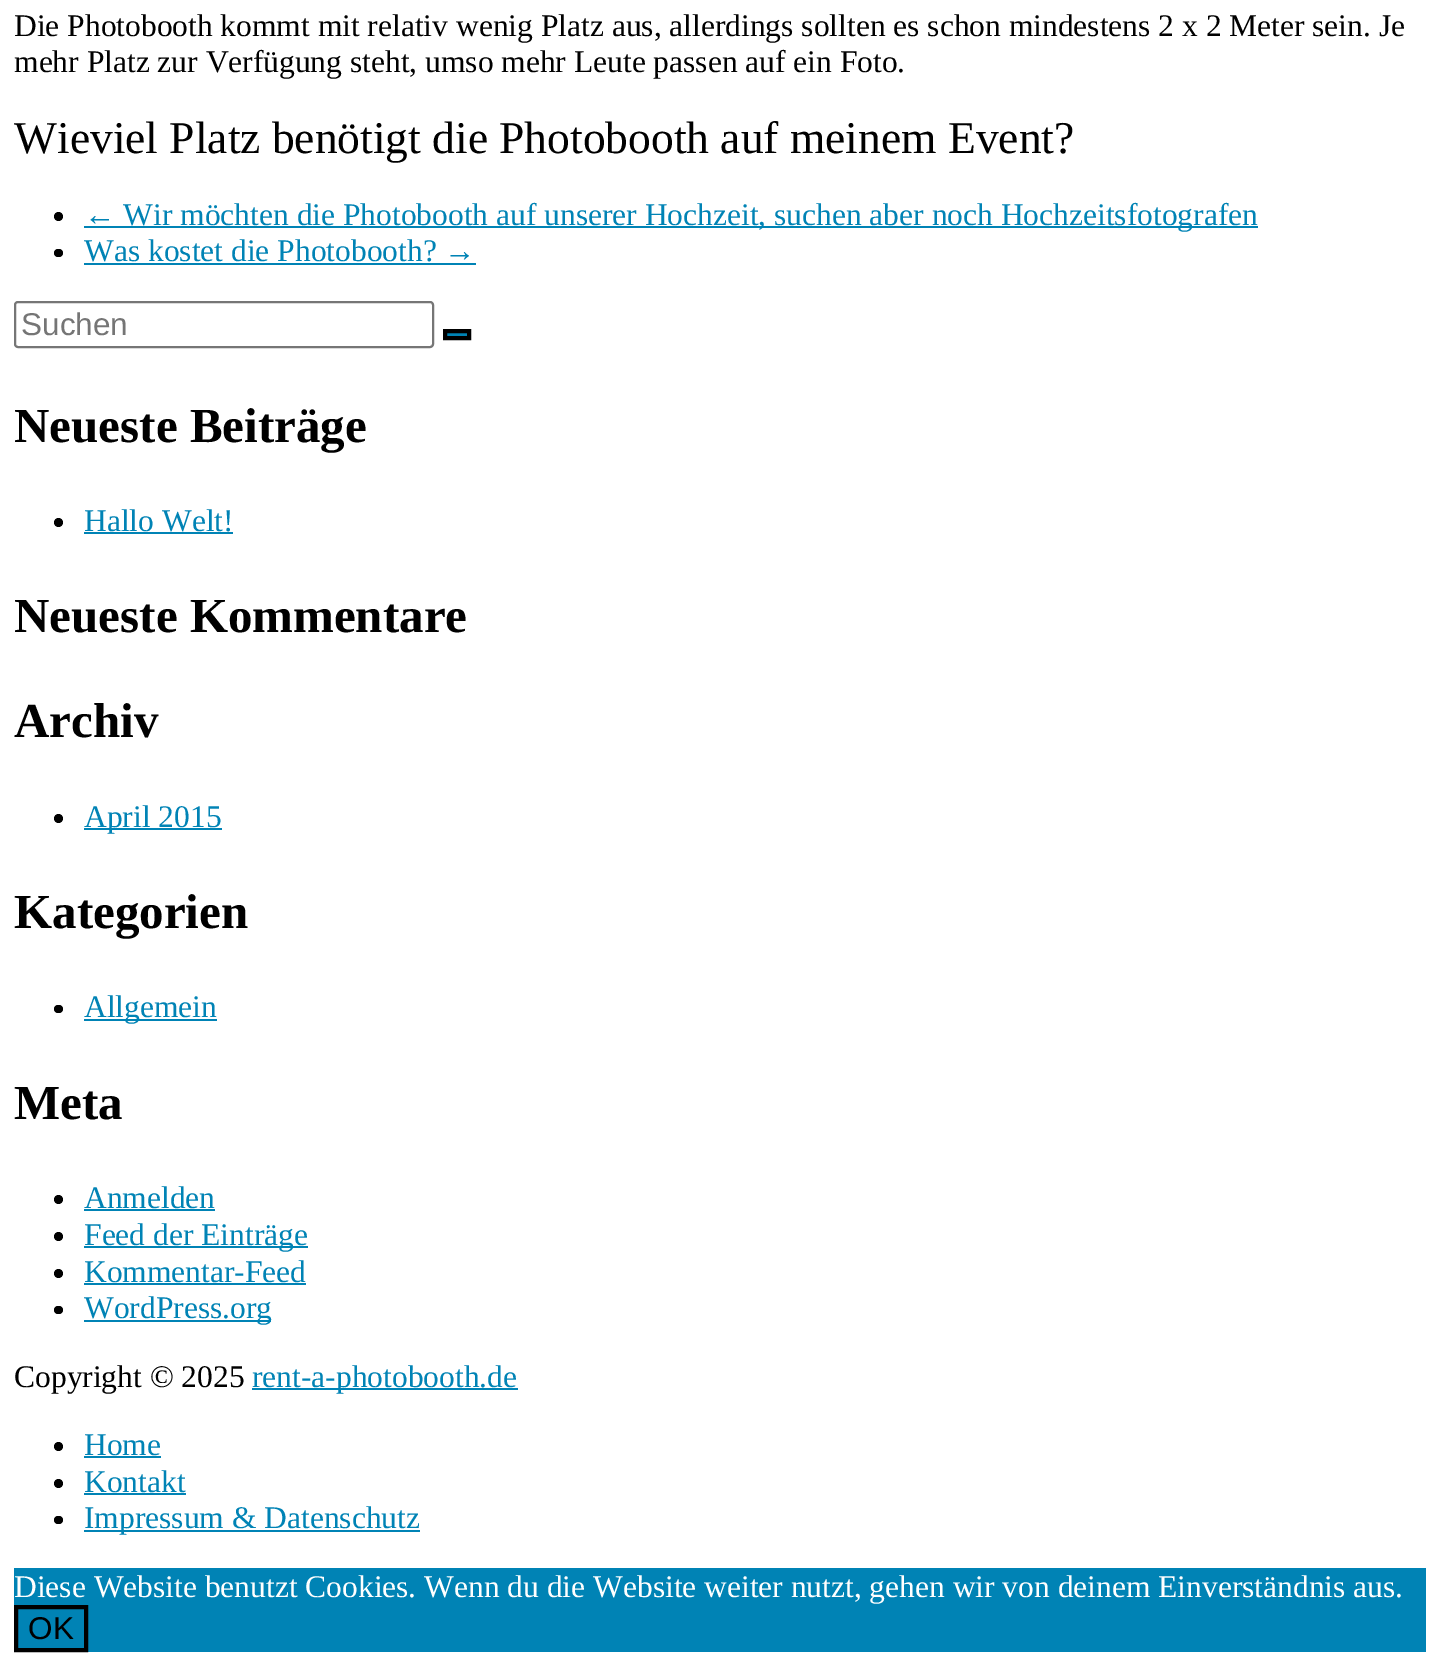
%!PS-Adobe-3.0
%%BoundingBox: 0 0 1439 1666
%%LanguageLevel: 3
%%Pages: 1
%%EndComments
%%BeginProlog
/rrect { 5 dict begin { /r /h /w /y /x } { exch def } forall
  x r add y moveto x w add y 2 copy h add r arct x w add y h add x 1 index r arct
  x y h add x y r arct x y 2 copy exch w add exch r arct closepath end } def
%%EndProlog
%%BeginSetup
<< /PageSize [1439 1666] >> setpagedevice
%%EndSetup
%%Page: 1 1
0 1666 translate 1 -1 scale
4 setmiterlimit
1 setgray
0 0 1439 1666 rectfill
0 setgray
newpath 58.5 216.5 4.5 0 360 arc closepath fill
0 0.514 0.71 setrgbcolor
84 226 1174 2 rectfill
0 setgray
54 249 9 8 4 rrect fill
0 0.514 0.71 setrgbcolor
84 263 392 2 rectfill
0.463 setgray
2 setlinewidth
15 302 418 45 3 rrect stroke
0 0.514 0.71 setrgbcolor
newpath 445 331 moveto 469 331 lineto 469 338 lineto 445 338 lineto closepath gsave fill grestore
0 setgray
4 setlinewidth
stroke
newpath 58.5 522.5 4.5 0 360 arc closepath fill
0 0.514 0.71 setrgbcolor
84 532 149 2 rectfill
0 setgray
newpath 58.5 818.5 4.5 0 360 arc closepath fill
0 0.514 0.71 setrgbcolor
84 828 138 2 rectfill
0 setgray
54 1005 9 8 4 rrect fill
0 0.514 0.71 setrgbcolor
84 1019 133 2 rectfill
0 setgray
newpath 58.5 1199.5 4.5 0 360 arc closepath fill
0 0.514 0.71 setrgbcolor
84 1209 131 2 rectfill
0 setgray
newpath 58.5 1236.5 4.5 0 360 arc closepath fill
0 0.514 0.71 setrgbcolor
84 1246 224 2 rectfill
0 setgray
newpath 58.5 1273.5 4.5 0 360 arc closepath fill
0 0.514 0.71 setrgbcolor
84 1283 222 2 rectfill
0 setgray
54 1306 9 8 4 rrect fill
0 0.514 0.71 setrgbcolor
84 1320 187 2 rectfill
252 1388 266 2 rectfill
0 setgray
newpath 58.5 1446.5 4.5 0 360 arc closepath fill
0 0.514 0.71 setrgbcolor
84 1456 77 2 rectfill
0 setgray
newpath 58.5 1483.5 4.5 0 360 arc closepath fill
0 0.514 0.71 setrgbcolor
84 1493 102 2 rectfill
0 setgray
54 1516 9 8 4 rrect fill
0 0.514 0.71 setrgbcolor
84 1530 336 2 rectfill
14 1568 1412 84 rectfill
0 setgray
16 1607 70 43 rectstroke
/LiberationSerif-Regular [31.5 0 0 -31.5 0 0] selectfont
14 36 moveto (Die Photobooth kommt mit relativ wenig Platz aus, allerdings sollten es schon mindestens 2 x 2 Meter sein. Je) show
14 72 moveto (mehr Platz zur Verfügung steht, umso mehr Leute passen auf ein Foto.) show
/LiberationSerif-Regular [45.5 0 0 -45.5 0 0] selectfont
14 153 moveto (Wieviel Platz benötigt die Photobooth auf meinem Event?) show
/LiberationSerif-Regular [31.5 0 0 -31.5 0 0] selectfont
0 0.514 0.71 setrgbcolor
84 225 moveto (← Wir möchten die Photobooth auf unserer Hochzeit, suchen aber noch Hochzeitsfotografen) show
84 261 moveto (Was kostet die Photobooth? →) show
/LiberationSans-Regular [31.5 0 0 -31.5 0 0] selectfont
0.459 setgray
21 335 moveto (Suchen) show
/LiberationSerif-Bold [49 0 0 -49 0 0] selectfont
0 setgray
14 442 moveto (Neueste Beiträge) show
/LiberationSerif-Regular [31.5 0 0 -31.5 0 0] selectfont
0 0.514 0.71 setrgbcolor
84 531 moveto (Hallo Welt!) show
/LiberationSerif-Bold [49 0 0 -49 0 0] selectfont
0 setgray
14 632 moveto (Neueste Kommentare) show
14 737 moveto (Archiv) show
/LiberationSerif-Regular [31.5 0 0 -31.5 0 0] selectfont
0 0.514 0.71 setrgbcolor
84 827 moveto (April 2015) show
/LiberationSerif-Bold [49 0 0 -49 0 0] selectfont
0 setgray
14 928 moveto (Kategorien) show
/LiberationSerif-Regular [31.5 0 0 -31.5 0 0] selectfont
0 0.514 0.71 setrgbcolor
84 1017 moveto (Allgemein) show
/LiberationSerif-Bold [49 0 0 -49 0 0] selectfont
0 setgray
14 1119 moveto (Meta) show
/LiberationSerif-Regular [31.5 0 0 -31.5 0 0] selectfont
0 0.514 0.71 setrgbcolor
84 1208 moveto (Anmelden) show
84 1245 moveto (Feed der Einträge) show
84 1282 moveto (Kommentar-Feed) show
84 1318 moveto (WordPress.org) show
0 setgray
14 1387 moveto (Copyright © 2025) show
0 0.514 0.71 setrgbcolor
252 1387 moveto (rent-a-photobooth.de) show
84 1455 moveto (Home) show
84 1492 moveto (Kontakt) show
84 1528 moveto (Impressum & Datenschutz) show
1 setgray
14 1597 moveto (Diese Website benutzt Cookies. Wenn du die Website weiter nutzt, gehen wir von deinem Einverständnis aus.) show
/LiberationSans-Regular [31.5 0 0 -31.5 0 0] selectfont
0 setgray
28 1639 moveto (OK) show
showpage
%%EOF
